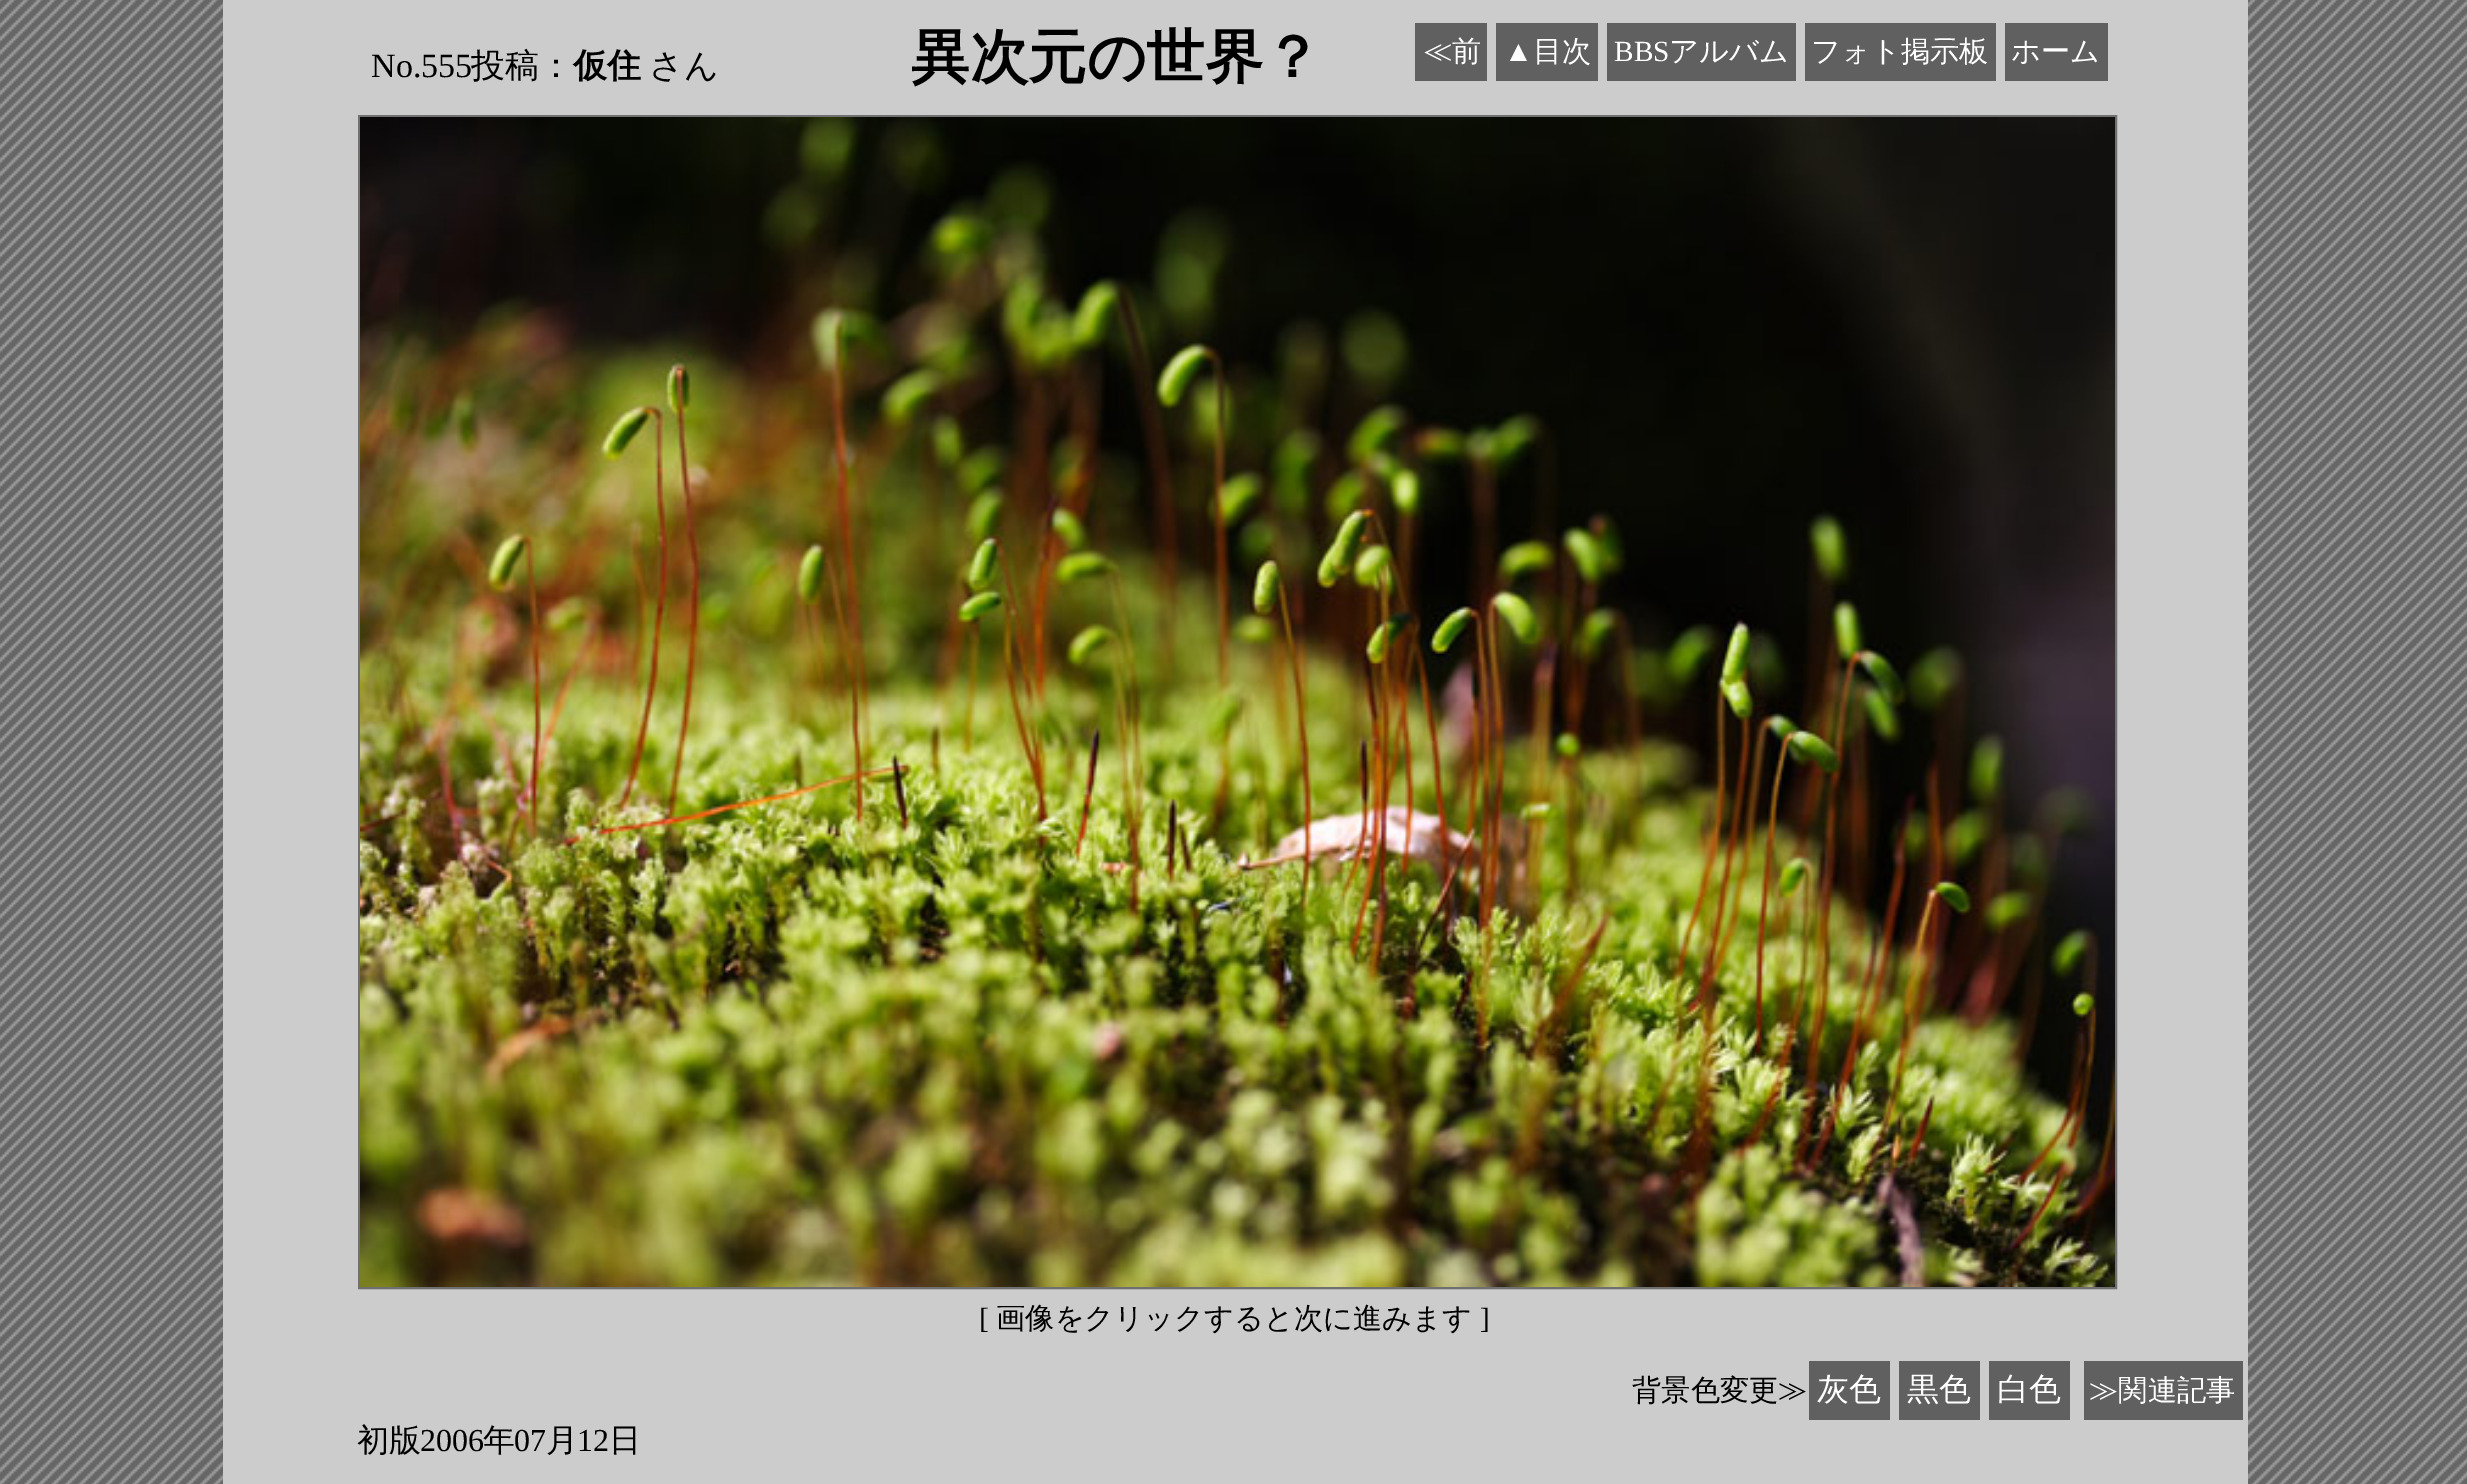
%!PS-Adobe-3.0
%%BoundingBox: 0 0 2467 1484
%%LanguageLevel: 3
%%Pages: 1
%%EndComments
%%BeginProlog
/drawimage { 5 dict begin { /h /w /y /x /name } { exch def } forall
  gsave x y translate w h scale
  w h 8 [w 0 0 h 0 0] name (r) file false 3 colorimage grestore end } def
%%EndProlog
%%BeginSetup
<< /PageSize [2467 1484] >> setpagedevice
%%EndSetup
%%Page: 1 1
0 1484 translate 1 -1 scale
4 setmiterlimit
1 setgray
0 0 2467 1484 rectfill
(images/1.raw) 0 0 2467 1484 drawimage
0.8 setgray
223 0 2025 1484 rectfill
0.376 setgray
1415 23 72 58 rectfill
1496 23 102 58 rectfill
1607 23 189 58 rectfill
1805 23 191 58 rectfill
2005 23 103 58 rectfill
0.439 setgray
2 setlinewidth
359 116 1757 1172 rectstroke
(images/2.raw) 360 117 1755 1170 drawimage
0.376 setgray
1809 1361 81 59 rectfill
1899 1361 81 59 rectfill
1989 1361 81 59 rectfill
2084 1361 159 59 rectfill
/LiberationSerif-Regular [34 0 0 -34 0 0] selectfont
0 setgray
371 77 moveto (No.555) show
/WenQuanYiZenHei-Medium [34 0 0 -34 0 0] selectfont
471 77 moveto (投稿：) show
/WenQuanYiZenHei-Bold [34 0 0 -34 0 0] selectfont
573 77 moveto (仮住) show
/WenQuanYiZenHei-Medium [34 0 0 -34 0 0] selectfont
649 77 moveto (さん) show
/WenQuanYiZenHei-Bold [58.5 0 0 -58.5 0 0] selectfont
911 77 moveto (異次元の世界？) show
/WenQuanYiZenHei-Medium [29.25 0 0 -29.25 0 0] selectfont
1 setgray
1423 61 moveto (≪前) show
/LiberationSerif-Regular [29.25 0 0 -29.25 0 0] selectfont
1504 61 moveto (▲) show
/WenQuanYiZenHei-Medium [29.25 0 0 -29.25 0 0] selectfont
1533 61 moveto (目次) show
/LiberationSerif-Regular [29.25 0 0 -29.25 0 0] selectfont
1614 61 moveto (BBS) show
/WenQuanYiZenHei-Medium [29.25 0 0 -29.25 0 0] selectfont
1669 61 moveto (アルバム) show
1811 61 moveto (フォト掲示板) show
2011 61 moveto (ホーム) show
/LiberationSerif-Regular [29.25 0 0 -29.25 0 0] selectfont
0 setgray
979 1328 moveto ([) show
/WenQuanYiZenHei-Medium [29.25 0 0 -29.25 0 0] selectfont
996 1328 moveto (画像をクリックすると次に進みます) show
/LiberationSerif-Regular [29.25 0 0 -29.25 0 0] selectfont
1480 1328 moveto (]) show
/WenQuanYiZenHei-Medium [29.25 0 0 -29.25 0 0] selectfont
1632 1400 moveto (背景色変更≫) show
/WenQuanYiZenHei-Medium [32 0 0 -32 0 0] selectfont
1 setgray
1817 1400 moveto (灰色) show
1907 1400 moveto (黒色) show
1997 1400 moveto (白色) show
/WenQuanYiZenHei-Medium [29.25 0 0 -29.25 0 0] selectfont
2089 1400 moveto (≫関連記事) show
/WenQuanYiZenHei-Medium [32 0 0 -32 0 0] selectfont
0 setgray
357 1451 moveto (初版) show
/LiberationSerif-Regular [32 0 0 -32 0 0] selectfont
420 1451 moveto (2006) show
/WenQuanYiZenHei-Medium [32 0 0 -32 0 0] selectfont
483 1451 moveto (年) show
/LiberationSerif-Regular [32 0 0 -32 0 0] selectfont
514 1451 moveto (07) show
/WenQuanYiZenHei-Medium [32 0 0 -32 0 0] selectfont
546 1451 moveto (月) show
/LiberationSerif-Regular [32 0 0 -32 0 0] selectfont
577 1451 moveto (12) show
/WenQuanYiZenHei-Medium [32 0 0 -32 0 0] selectfont
609 1451 moveto (日) show
showpage
%%EOF
